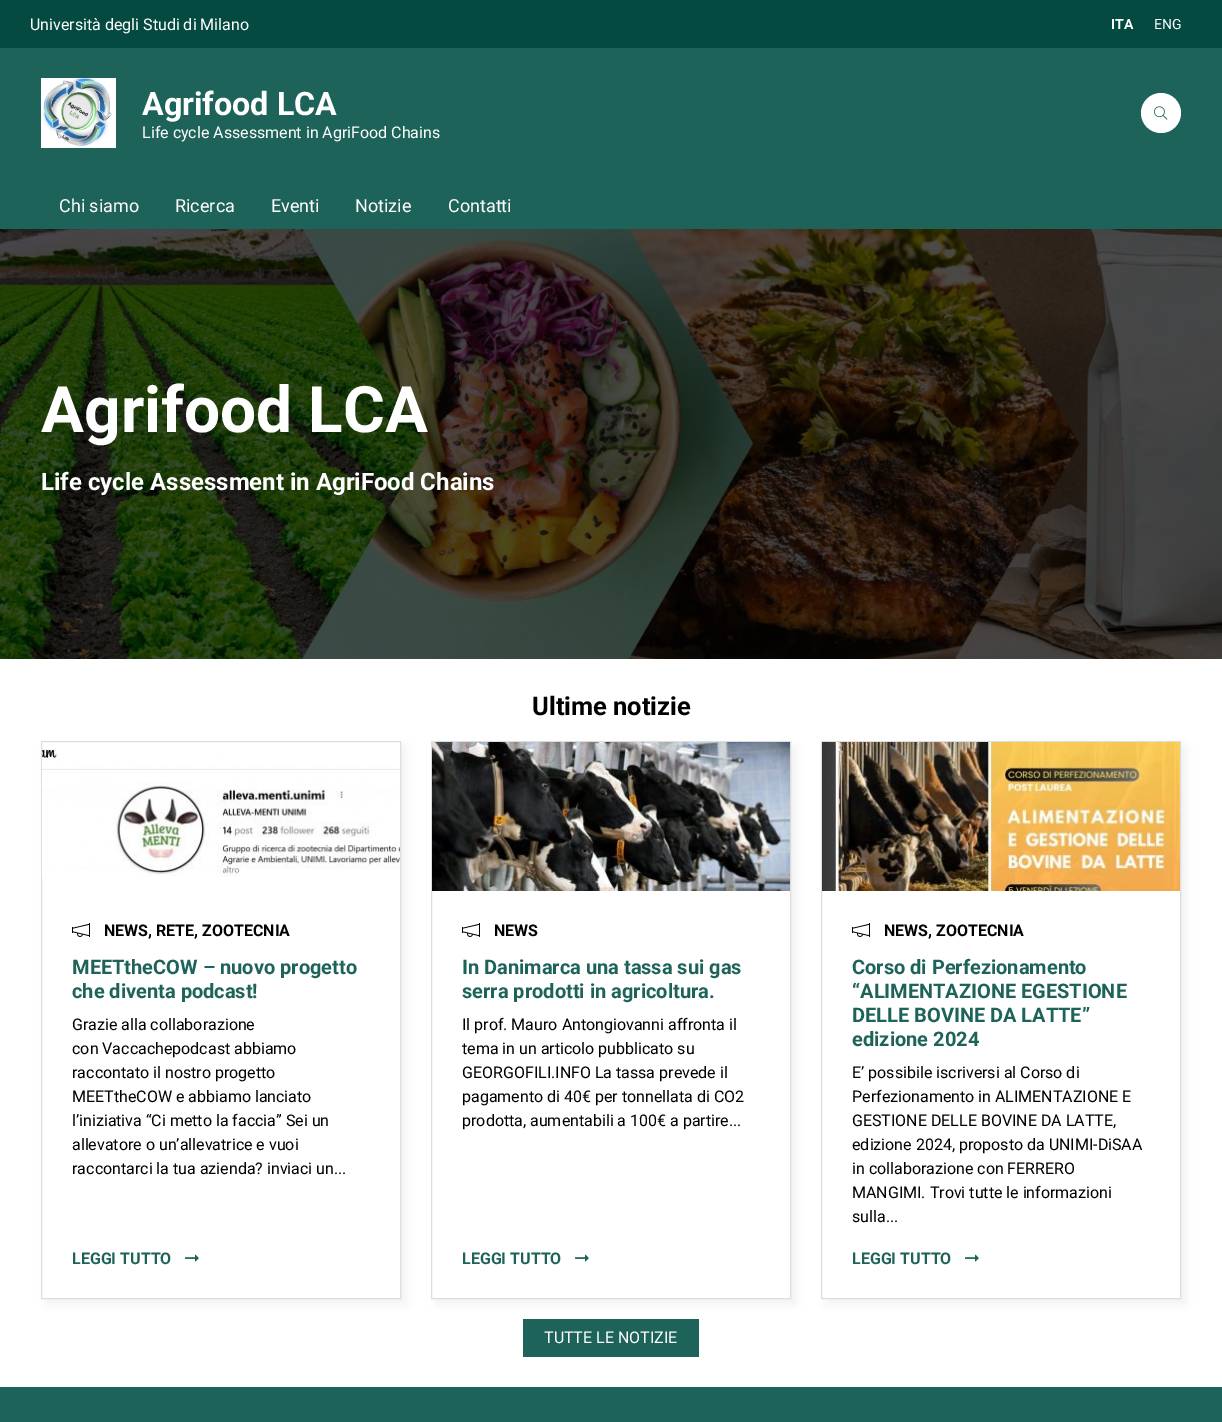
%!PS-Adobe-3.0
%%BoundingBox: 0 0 1222 1422
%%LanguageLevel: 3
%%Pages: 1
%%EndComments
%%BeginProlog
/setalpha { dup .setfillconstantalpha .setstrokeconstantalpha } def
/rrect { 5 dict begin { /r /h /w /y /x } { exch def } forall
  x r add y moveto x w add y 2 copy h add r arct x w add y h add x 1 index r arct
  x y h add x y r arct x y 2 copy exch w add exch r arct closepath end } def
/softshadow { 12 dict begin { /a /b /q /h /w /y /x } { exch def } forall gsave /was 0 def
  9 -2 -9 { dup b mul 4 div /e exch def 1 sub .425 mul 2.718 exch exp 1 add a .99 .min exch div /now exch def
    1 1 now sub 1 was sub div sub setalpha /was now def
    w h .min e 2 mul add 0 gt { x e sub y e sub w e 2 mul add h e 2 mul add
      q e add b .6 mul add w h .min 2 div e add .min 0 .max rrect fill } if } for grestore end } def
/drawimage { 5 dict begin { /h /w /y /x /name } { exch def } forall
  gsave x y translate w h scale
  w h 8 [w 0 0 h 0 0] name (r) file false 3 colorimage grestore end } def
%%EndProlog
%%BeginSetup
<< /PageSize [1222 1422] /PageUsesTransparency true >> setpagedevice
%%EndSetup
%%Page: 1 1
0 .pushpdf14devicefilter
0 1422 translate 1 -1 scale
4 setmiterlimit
1 setgray
0 0 1222 1422 rectfill
0.114 0.388 0.349 setrgbcolor
0 48 1222 181 rectfill
0.016 0.29 0.251 setrgbcolor
0 0 1222 48 rectfill
(images/1.raw) 41 78 75 70 drawimage
1 setgray
newpath 1161 113 20 0 360 arc closepath fill
(images/2.raw) 1154 106 14 14 drawimage
(images/3.raw) 0 229 1222 430 drawimage
gsave
newpath 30 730 moveto 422 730 lineto 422 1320 lineto 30 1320 lineto closepath 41 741 moveto 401 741 lineto 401 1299 lineto 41 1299 lineto closepath eoclip newpath
0 setgray
46 746 360 558 0 5 0.05 softshadow
grestore
0.867 setgray
41.5 741.5 359 557 rectstroke
(images/4.raw) 42 749 358 128 drawimage
(images/5.raw) 72 923 18 14 drawimage
(images/6.raw) 185 1254 14 8 drawimage
gsave
newpath 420 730 moveto 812 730 lineto 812 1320 lineto 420 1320 lineto closepath 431 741 moveto 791 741 lineto 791 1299 lineto 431 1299 lineto closepath eoclip newpath
0 setgray
436 746 360 558 0 5 0.05 softshadow
grestore
431.5 741.5 359 557 rectstroke
(images/7.raw) 432 742 358 149 drawimage
(images/5.raw) 462 923 18 14 drawimage
(images/6.raw) 575 1254 14 8 drawimage
gsave
newpath 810 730 moveto 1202 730 lineto 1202 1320 lineto 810 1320 lineto closepath 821 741 moveto 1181 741 lineto 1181 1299 lineto 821 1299 lineto closepath eoclip newpath
0 setgray
826 746 360 558 0 5 0.05 softshadow
grestore
821.5 741.5 359 557 rectstroke
(images/8.raw) 822 742 358 149 drawimage
(images/5.raw) 852 923 18 14 drawimage
(images/6.raw) 965 1254 14 8 drawimage
0.114 0.388 0.349 setrgbcolor
523 1319 176 38 rectfill
0 1387 1222 35 rectfill
/Roboto-Regular [16 0 0 -16 0 0] selectfont
1 setgray
30 30 moveto (Università degli Studi di Milano) show
/Roboto-Bold [14 0 0 -14 0 0] selectfont
1111 29 moveto (ITA) show
/Roboto-Regular [14 0 0 -14 0 0] selectfont
1154 29 moveto (ENG) show
/Roboto-Bold [32.25 0 0 -32.25 0 0] selectfont
142 115 moveto (Agrifood LCA) show
/Roboto-Regular [16 0 0 -16 0 0] selectfont
142 138 moveto (Life cycle Assessment in AgriFood Chains) show
/Roboto-Regular [18 0 0 -18 0 0] selectfont
59 212 moveto (Chi siamo) show
175 212 moveto (Ricerca) show
271 212 moveto (Eventi) show
355 212 moveto (Notizie) show
448 212 moveto (Contatti) show
/Roboto-Bold [64 0 0 -64 0 0] selectfont
41 432 moveto (Agrifood LCA) show
/Roboto-Bold [24 0 0 -24 0 0] selectfont
41 490 moveto (Life cycle Assessment in AgriFood Chains) show
/Roboto-Bold [25.5 0 0 -25.5 0 0] selectfont
0 setgray
532 715 moveto (Ultime notizie) show
/Roboto-Bold [16 0 0 -16 0 0] selectfont
104 936 moveto (NEWS, RETE, ZOOTECNIA) show
/Roboto-Bold [20 0 0 -20 0 0] selectfont
0.114 0.388 0.349 setrgbcolor
72 974 moveto (MEETtheCOW – nuovo progetto) show
72 998 moveto (che diventa podcast!) show
/Roboto-Regular [16 0 0 -16 0 0] selectfont
0 setgray
72 1030 moveto (Grazie alla collaborazione) show
72 1054 moveto (con Vaccachepodcast abbiamo) show
72 1078 moveto (raccontato il nostro progetto) show
72 1102 moveto (MEETtheCOW e abbiamo lanciato) show
72 1126 moveto (l’iniziativa “Ci metto la faccia” Sei un) show
72 1150 moveto (allevatore o un’allevatrice e vuoi) show
72 1174 moveto (raccontarci la tua azienda? inviaci un...) show
/Roboto-Bold [16 0 0 -16 0 0] selectfont
0.114 0.388 0.349 setrgbcolor
72 1264 moveto (LEGGI TUTTO) show
0 setgray
494 936 moveto (NEWS) show
/Roboto-Bold [20 0 0 -20 0 0] selectfont
0.114 0.388 0.349 setrgbcolor
462 974 moveto (In Danimarca una tassa sui gas) show
462 998 moveto (serra prodotti in agricoltura.) show
/Roboto-Regular [16 0 0 -16 0 0] selectfont
0 setgray
462 1030 moveto (Il prof. Mauro Antongiovanni affronta il) show
462 1054 moveto (tema in un articolo pubblicato su) show
462 1078 moveto (GEORGOFILI.INFO La tassa prevede il) show
462 1102 moveto (pagamento di 40€ per tonnellata di CO2) show
462 1126 moveto (prodotta, aumentabili a 100€ a partire...) show
/Roboto-Bold [16 0 0 -16 0 0] selectfont
0.114 0.388 0.349 setrgbcolor
462 1264 moveto (LEGGI TUTTO) show
0 setgray
884 936 moveto (NEWS, ZOOTECNIA) show
/Roboto-Bold [20 0 0 -20 0 0] selectfont
0.114 0.388 0.349 setrgbcolor
852 974 moveto (Corso di Perfezionamento) show
852 998 moveto (“ALIMENTAZIONE EGESTIONE) show
852 1022 moveto (DELLE BOVINE DA LATTE”) show
852 1046 moveto (edizione 2024) show
/Roboto-Regular [16 0 0 -16 0 0] selectfont
0 setgray
852 1078 moveto (E’ possibile iscriversi al Corso di) show
852 1102 moveto (Perfezionamento in ALIMENTAZIONE E) show
852 1126 moveto (GESTIONE DELLE BOVINE DA LATTE,) show
852 1150 moveto (edizione 2024, proposto da UNIMI-DiSAA) show
852 1174 moveto (in collaborazione con FERRERO) show
852 1198 moveto (MANGIMI. Trovi tutte le informazioni) show
852 1222 moveto (sulla...) show
/Roboto-Bold [16 0 0 -16 0 0] selectfont
0.114 0.388 0.349 setrgbcolor
852 1264 moveto (LEGGI TUTTO) show
/Roboto-Regular [16 0 0 -16 0 0] selectfont
1 setgray
544 1343 moveto (TUTTE LE NOTIZIE) show
.poppdf14devicefilter showpage
%%EOF
